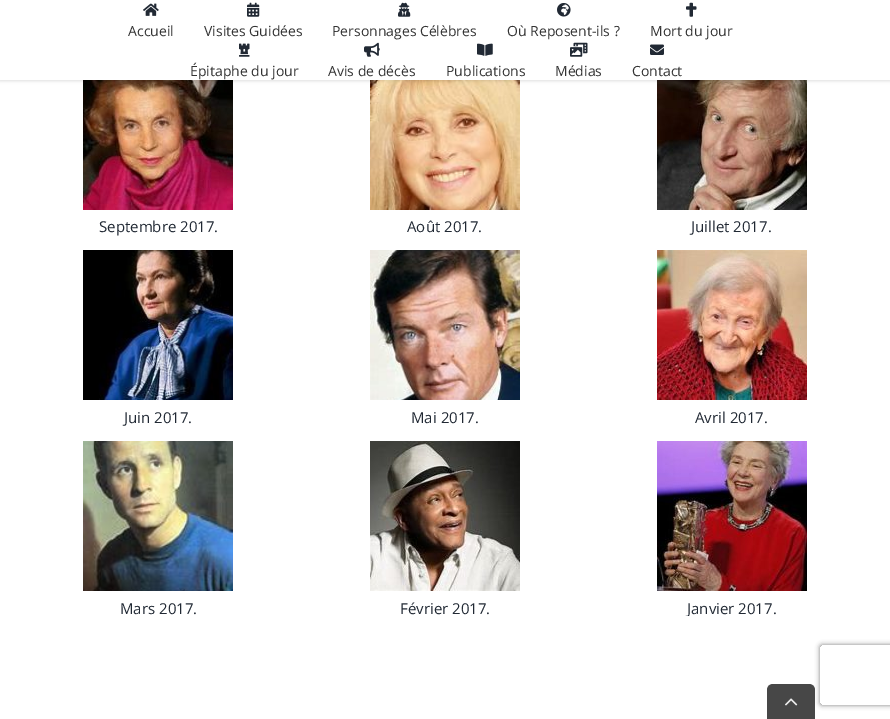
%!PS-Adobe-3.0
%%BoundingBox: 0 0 890 719
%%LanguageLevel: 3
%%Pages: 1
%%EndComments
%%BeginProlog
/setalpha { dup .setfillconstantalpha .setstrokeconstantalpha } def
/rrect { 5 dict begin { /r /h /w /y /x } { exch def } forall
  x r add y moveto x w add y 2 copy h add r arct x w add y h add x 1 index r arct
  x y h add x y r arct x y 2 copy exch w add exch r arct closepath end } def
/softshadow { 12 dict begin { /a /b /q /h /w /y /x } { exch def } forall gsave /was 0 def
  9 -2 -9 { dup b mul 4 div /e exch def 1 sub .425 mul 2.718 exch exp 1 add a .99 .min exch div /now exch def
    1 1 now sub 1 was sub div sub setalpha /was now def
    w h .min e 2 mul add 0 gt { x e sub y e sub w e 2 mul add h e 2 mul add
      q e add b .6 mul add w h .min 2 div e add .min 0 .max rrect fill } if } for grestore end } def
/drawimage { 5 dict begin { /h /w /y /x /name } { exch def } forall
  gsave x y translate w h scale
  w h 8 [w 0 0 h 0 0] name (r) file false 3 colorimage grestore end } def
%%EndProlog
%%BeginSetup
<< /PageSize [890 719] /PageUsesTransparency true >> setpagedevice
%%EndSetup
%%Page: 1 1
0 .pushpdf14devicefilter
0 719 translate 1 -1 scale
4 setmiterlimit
1 setgray
0 0 890 719 rectfill
(images/11.raw) 83 80 150 130 drawimage
(images/12.raw) 370 80 150 130 drawimage
(images/13.raw) 657 80 150 130 drawimage
0 setgray
0 1 890 80 0 1.5 0.12 softshadow
1 setgray
0 0 890 80 rectfill
(images/1.raw) 143 3 16 13 drawimage
(images/2.raw) 247 2 13 15 drawimage
(images/3.raw) 398 2 13 15 drawimage
(images/4.raw) 557 3 14 14 drawimage
(images/5.raw) 686 2 11 15 drawimage
(images/6.raw) 239 43 11 14 drawimage
(images/7.raw) 364 42 16 15 drawimage
(images/8.raw) 477 43 16 13 drawimage
(images/9.raw) 570 42 18 15 drawimage
(images/10.raw) 650 44 14 11 drawimage
(images/14.raw) 83 250 150 150 drawimage
(images/15.raw) 370 250 150 150 drawimage
(images/16.raw) 657 250 150 150 drawimage
(images/17.raw) 83 441 150 150 drawimage
(images/18.raw) 370 441 150 150 drawimage
(images/19.raw) 657 441 150 150 drawimage
gsave
newpath 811 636 moveto 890 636 lineto 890 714 lineto 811 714 lineto closepath 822 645 moveto 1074 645 lineto 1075 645 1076 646 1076 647 curveto 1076 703 lineto 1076 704 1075 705 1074 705 curveto 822 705 lineto 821 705 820 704 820 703 curveto 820 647 lineto 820 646 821 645 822 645 curveto closepath eoclip newpath
0.502 setgray
820 645 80 60 2 2.5 1 softshadow
grestore
0.278 setgray
newpath 773 684 moveto 809 684 lineto 812.5 684 815 686.5 815 690 curveto 815 719 lineto 767 719 lineto 767 690 lineto 767 686.5 769.5 684 773 684 curveto closepath fill
(images/20.raw) 785 698 13 8 drawimage
/OpenSans-Regular [14 0 0 -14 0 0] selectfont
0.2 setgray
128 36 moveto (Accueil) show
204 36 moveto (Visites Guidées) show
332 36 moveto (Personnages Célèbres) show
507 36 moveto (Où Reposent-ils ?) show
650 36 moveto (Mort du jour) show
190 76 moveto (Épitaphe du jour) show
328 76 moveto (Avis de décès) show
446 76 moveto (Publications) show
555 76 moveto (Médias) show
632 76 moveto (Contact) show
/OpenSans-Regular [15 0 0 -15 0 0] selectfont
0.129 0.161 0.204 setrgbcolor
99 232 moveto (Septembre 2017.) show
407 232 moveto (Août 2017.) show
691 232 moveto (Juillet 2017.) show
124 423 moveto (Juin 2017.) show
411 423 moveto (Mai 2017.) show
695 423 moveto (Avril 2017.) show
120 614 moveto (Mars 2017.) show
400 614 moveto (Février 2017.) show
gsave
603 441 257 175 rectclip
687 614 moveto (Janvier 2017.) show
grestore
.poppdf14devicefilter showpage
%%EOF
